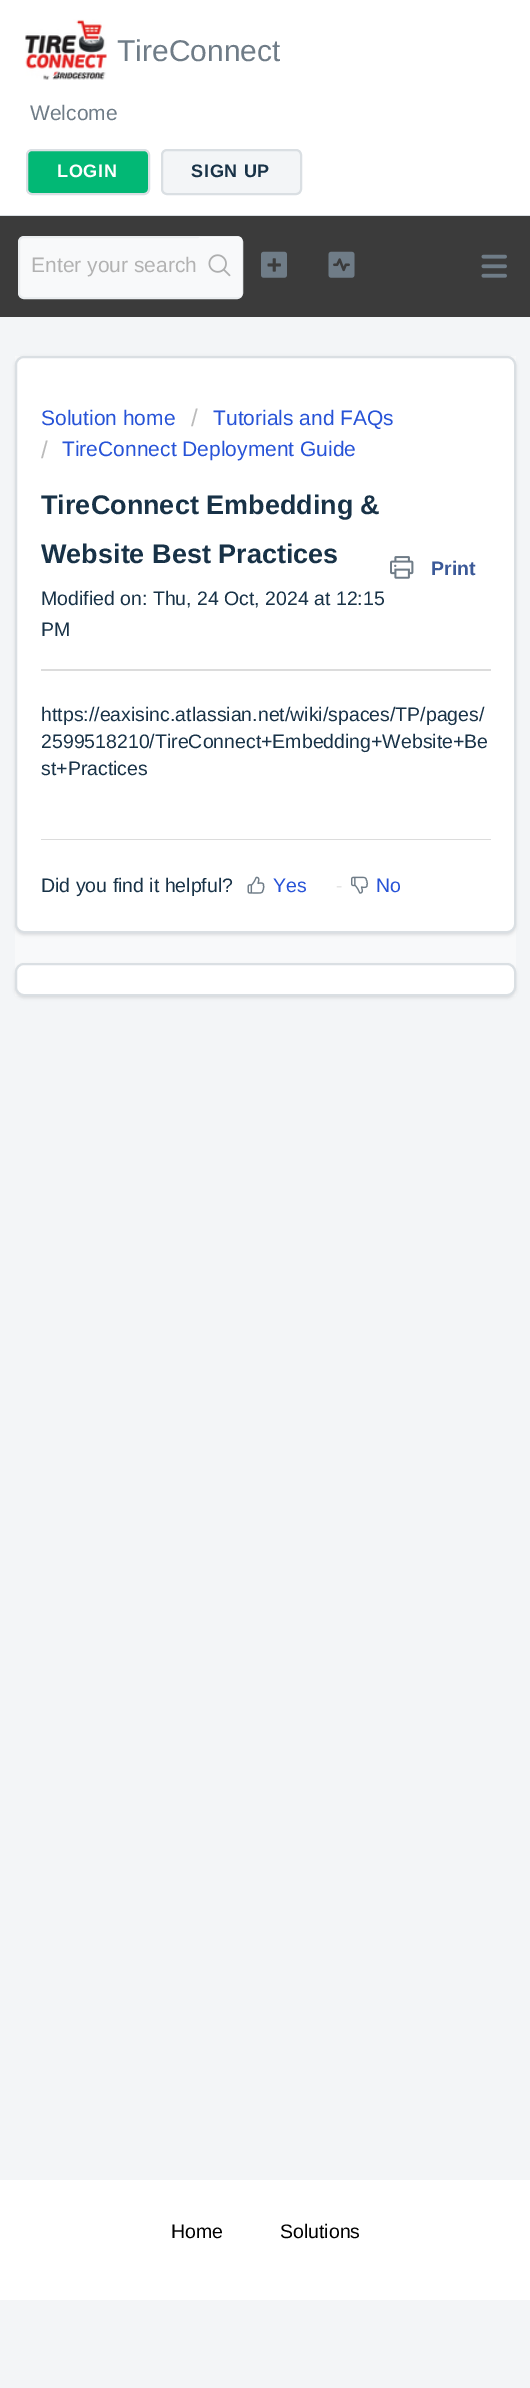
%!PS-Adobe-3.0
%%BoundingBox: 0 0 530 2388
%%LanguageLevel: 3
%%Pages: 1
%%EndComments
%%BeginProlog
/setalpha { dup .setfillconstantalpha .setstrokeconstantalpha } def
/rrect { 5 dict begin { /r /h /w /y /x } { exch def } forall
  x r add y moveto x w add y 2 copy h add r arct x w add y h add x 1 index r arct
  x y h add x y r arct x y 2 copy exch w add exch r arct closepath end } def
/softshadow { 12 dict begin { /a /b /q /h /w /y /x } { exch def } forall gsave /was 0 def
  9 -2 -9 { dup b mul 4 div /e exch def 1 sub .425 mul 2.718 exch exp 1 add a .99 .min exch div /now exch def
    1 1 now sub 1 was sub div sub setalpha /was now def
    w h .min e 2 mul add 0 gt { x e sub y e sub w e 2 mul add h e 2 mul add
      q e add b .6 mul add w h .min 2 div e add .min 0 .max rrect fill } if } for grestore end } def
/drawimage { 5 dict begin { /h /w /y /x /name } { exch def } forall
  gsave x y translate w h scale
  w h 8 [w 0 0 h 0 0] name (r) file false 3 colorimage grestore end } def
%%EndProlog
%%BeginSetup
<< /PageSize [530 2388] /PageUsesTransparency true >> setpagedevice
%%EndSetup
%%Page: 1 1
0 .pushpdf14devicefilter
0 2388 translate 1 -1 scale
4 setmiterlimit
0.953 0.961 0.969 setrgbcolor
0 0 530 2388 rectfill
1 setgray
0 0 530 215 rectfill
0.855 0.875 0.89 setrgbcolor
0 215 530 1 rectfill
(images/1.raw) 25 19 82 61 drawimage
0.008 0.722 0.459 setrgbcolor
27 150 122 44 5 rrect gsave fill grestore
0.855 0.875 0.89 setrgbcolor
2 setlinewidth
stroke
0.953 0.961 0.969 setrgbcolor
162 150 139 44 5 rrect gsave fill grestore
0.855 0.875 0.89 setrgbcolor
stroke
0.231 setgray
0 216 530 101 rectfill
(images/2.raw) 481 254 26 24 drawimage
0.973 0.976 0.98 setrgbcolor
19 237 223 61 5 rrect gsave fill grestore
0.922 0.933 0.941 setrgbcolor
stroke
0.973 0.976 0.98 setrgbcolor
198 237 44 60 3 rrect fill
(images/3.raw) 208 254 23 23 drawimage
(images/4.raw) 261 251 26 27 drawimage
(images/5.raw) 328 251 27 27 drawimage
15 356 501 640 rectfill
0.247 0.247 0.267 setrgbcolor
15 357 501 578 9 1.5 0.15 softshadow
1 setgray
16 357 499 575 8 rrect gsave fill grestore
0.855 0.875 0.89 setrgbcolor
stroke
(images/6.raw) 390 556 24 23 drawimage
0.863 setgray
41 669 450 2 rectfill
41 839 450 1 rectfill
(images/7.raw) 247 876 18 18 drawimage
(images/8.raw) 351 876 18 18 drawimage
0.247 0.247 0.267 setrgbcolor
15 965 501 33 9 1.5 0.15 softshadow
1 setgray
16 964 499 31 8 rrect gsave fill grestore
0.855 0.875 0.89 setrgbcolor
stroke
1 setgray
0 2180 530 120 rectfill
/LiberationSans-Regular [30 0 0 -30 0 0] selectfont
0.435 0.486 0.529 setrgbcolor
117 61 moveto (TireConnect) show
/LiberationSans-Regular [21 0 0 -21 0 0] selectfont
30 120 moveto (Welcome) show
/LiberationSans-Bold [18 0 0 -18 0 0] selectfont
1 setgray
57 177 moveto 0.75 0 (LOGIN) ashow
0.094 0.196 0.278 setrgbcolor
191 177 moveto 0.75 0 (SIGN UP) ashow
/LiberationSans-Regular [21 0 0 -21 0 0] selectfont
0.698 setgray
31 272 moveto (Enter your search) show
0.153 0.325 0.843 setrgbcolor
41 425 moveto (Solution home) show
/LiberationSans-Regular [24 0 0 -24 0 0] selectfont
0.733 setgray
191 426 moveto (/) show
/LiberationSans-Regular [21 0 0 -21 0 0] selectfont
0.153 0.325 0.843 setrgbcolor
213 425 moveto (Tutorials and FAQs) show
/LiberationSans-Regular [24 0 0 -24 0 0] selectfont
0.733 setgray
41 458 moveto (/) show
/LiberationSans-Regular [21 0 0 -21 0 0] selectfont
0.153 0.325 0.843 setrgbcolor
62 456 moveto (TireConnect Deployment Guide) show
/LiberationSans-Bold [27 0 0 -27 0 0] selectfont
0.094 0.196 0.278 setrgbcolor
41 514 moveto (TireConnect Embedding &) show
41 563 moveto (Website Best Practices) show
/LiberationSans-Bold [19.5 0 0 -19.5 0 0] selectfont
0.231 0.349 0.596 setrgbcolor
431 575 moveto (Print) show
/LiberationSans-Regular [19.5 0 0 -19.5 0 0] selectfont
0.094 0.196 0.278 setrgbcolor
41 605 moveto (Modified on: Thu, 24 Oct, 2024 at 12:15) show
41 636 moveto (PM) show
41 721 moveto (https://eaxisinc.atlassian.net/wiki/spaces/TP/pages/) show
41 748 moveto (2599518210/TireConnect+Embedding+Website+Be) show
41 775 moveto (st+Practices) show
41 892 moveto (Did you find it helpful?) show
0.153 0.325 0.843 setrgbcolor
273 892 moveto (Yes) show
0.898 setgray
336 892 moveto (-) show
0.153 0.325 0.843 setrgbcolor
376 892 moveto (No) show
0 setgray
171 2238 moveto (Home) show
280 2238 moveto (Solutions) show
.poppdf14devicefilter showpage
%%EOF
